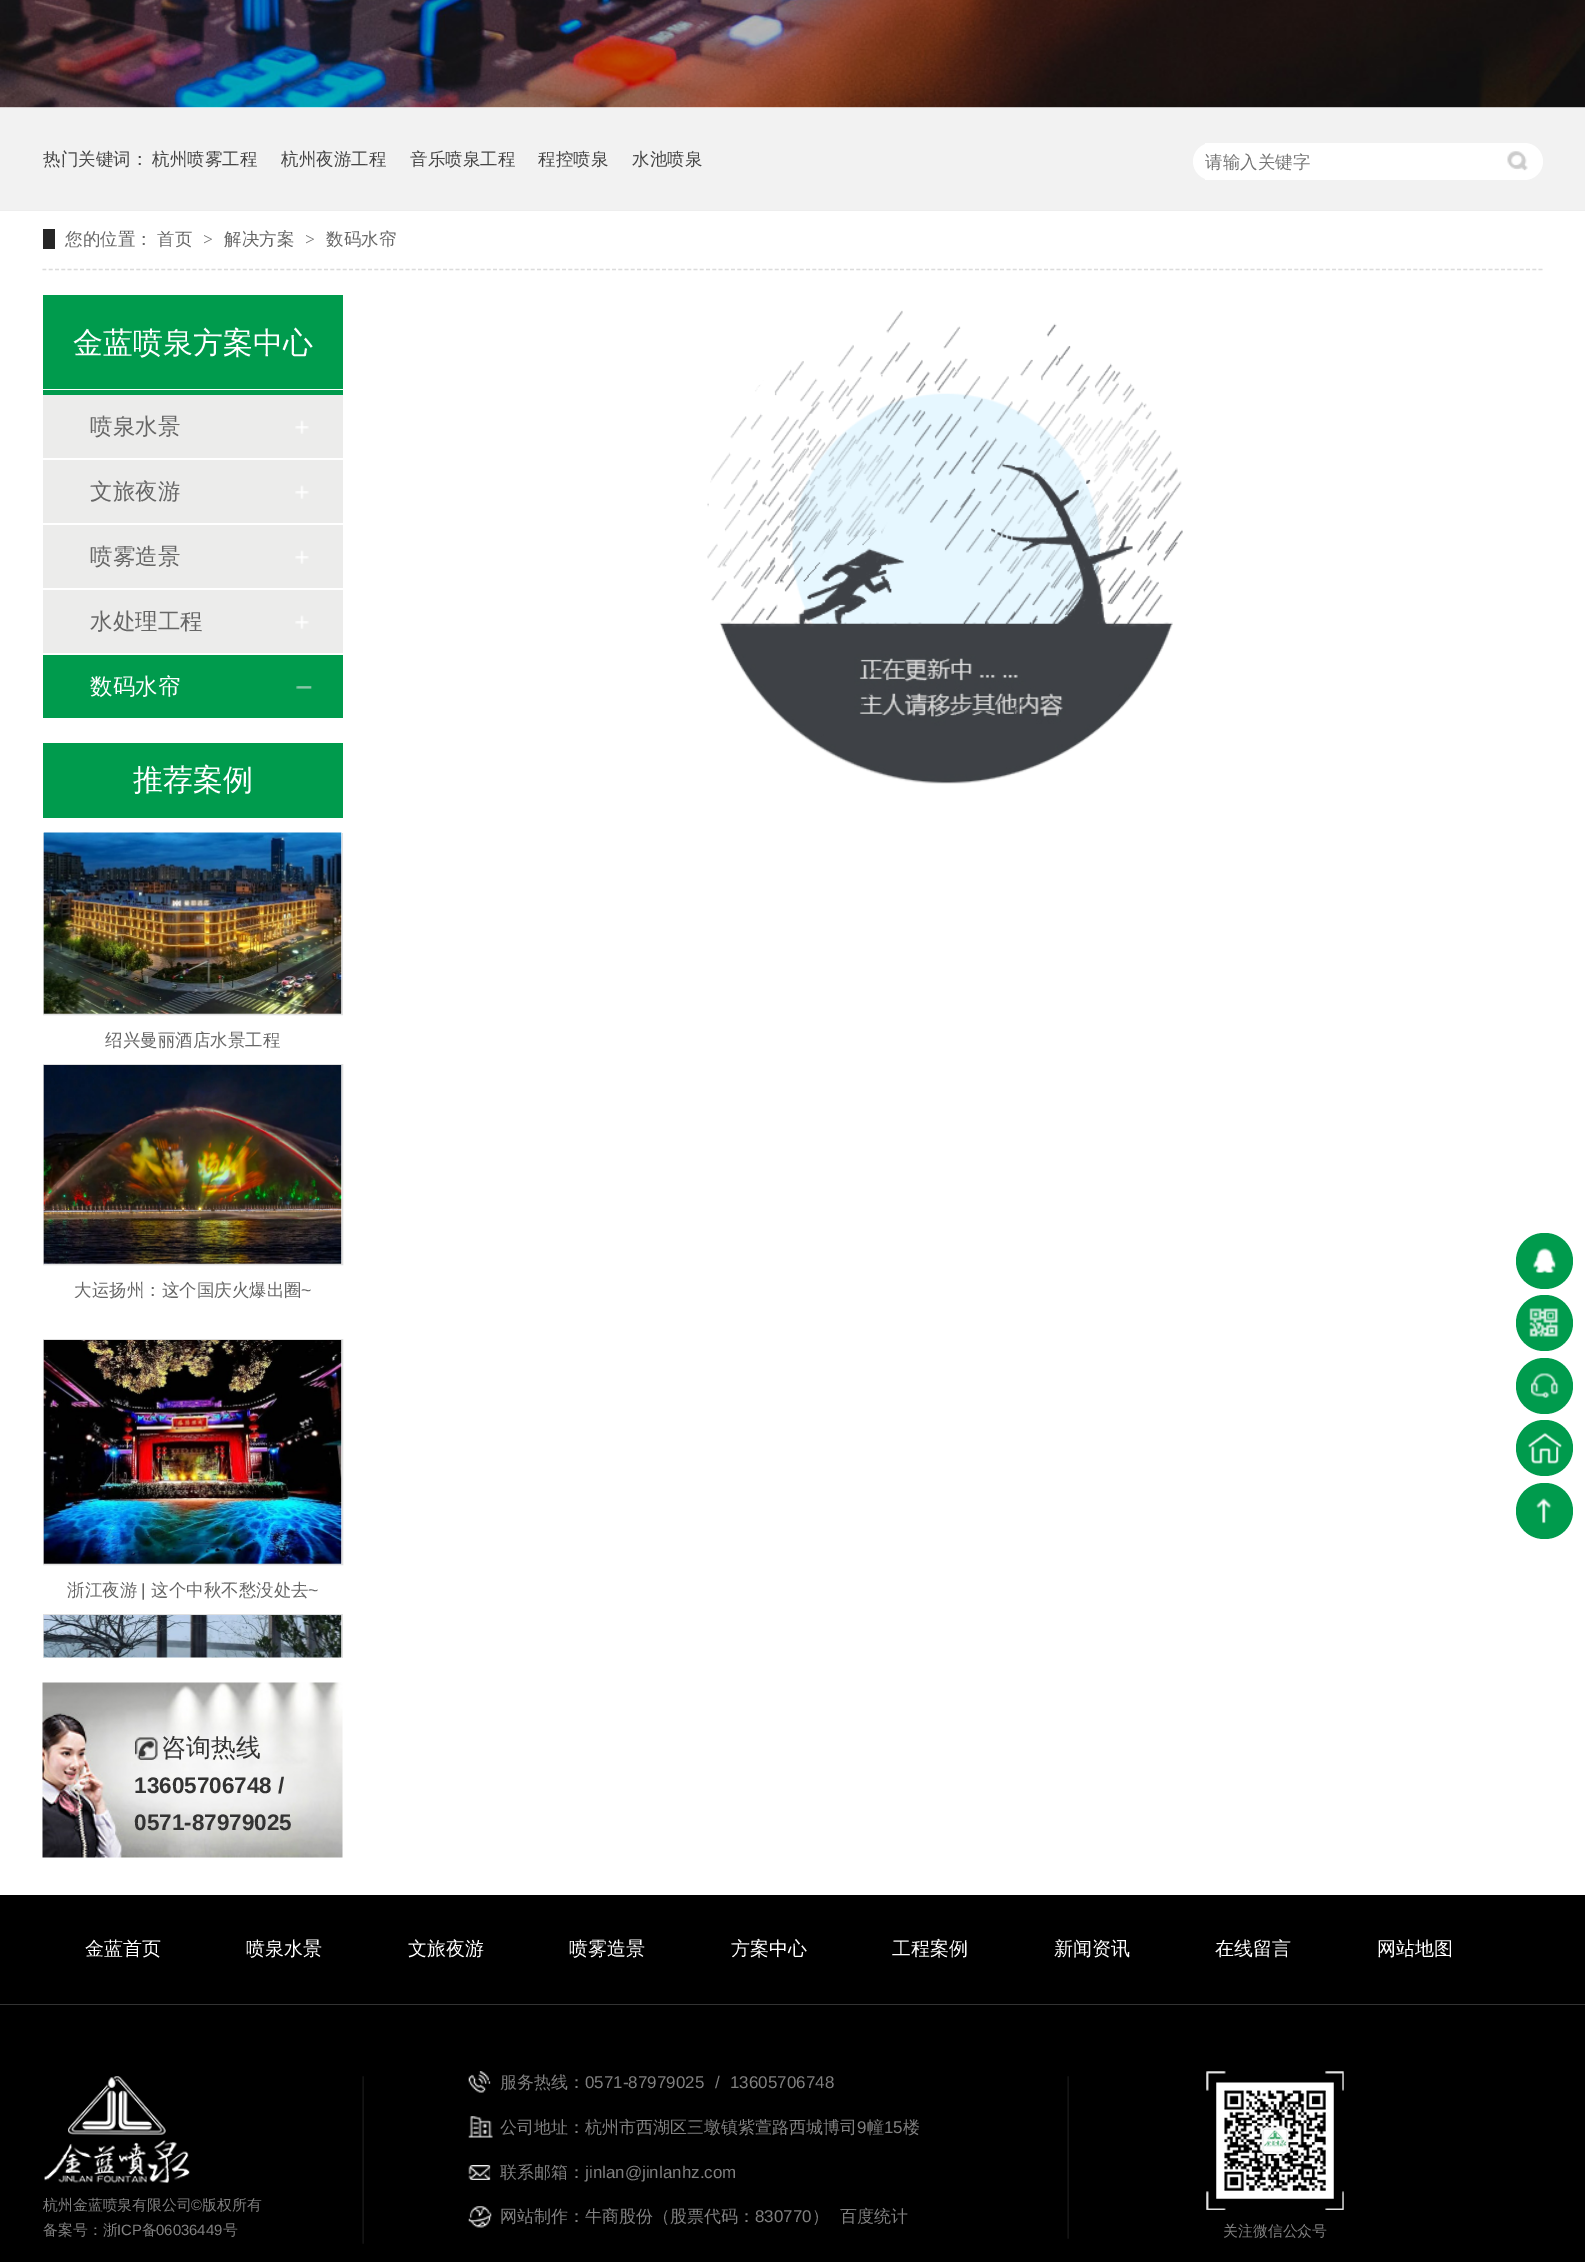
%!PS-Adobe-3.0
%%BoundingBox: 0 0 1585 2262
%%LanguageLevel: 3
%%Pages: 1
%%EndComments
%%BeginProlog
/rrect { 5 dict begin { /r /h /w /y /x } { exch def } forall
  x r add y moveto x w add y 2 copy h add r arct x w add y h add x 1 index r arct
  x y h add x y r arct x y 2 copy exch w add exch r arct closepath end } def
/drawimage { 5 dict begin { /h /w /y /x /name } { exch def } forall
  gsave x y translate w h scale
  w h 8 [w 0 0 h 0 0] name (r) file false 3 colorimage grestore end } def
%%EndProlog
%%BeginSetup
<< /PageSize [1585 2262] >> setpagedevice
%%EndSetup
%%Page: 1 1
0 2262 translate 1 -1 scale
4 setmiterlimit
1 setgray
0 0 1585 2262 rectfill
(images/1.raw) 0 0 1585 108 drawimage
0.949 setgray
0 108 1585 102 rectfill
0.933 setgray
0 210 1585 1 rectfill
1 setgray
1193 143 350 37 18.5 rrect fill
1205 143 4 37 rectfill
(images/2.raw) 1507 151 21 20 drawimage
0.863 setgray
1.2 setlinewidth
[3.75 2.51] 0 setdash
newpath 42.5 269.5 moveto 1542.5 269.5 lineto stroke
0.149 setgray
43 229 12 20 rectfill
0 0.608 0.302 setrgbcolor
43 295 300 100 rectfill
1 setgray
43 389 300 1 rectfill
0.925 0.925 0.922 setrgbcolor
43 395 300 63 rectfill
(images/3.raw) 295 420 14 14 drawimage
43 460 300 63 rectfill
(images/3.raw) 295 485 14 14 drawimage
43 525 300 63 rectfill
(images/3.raw) 295 550 14 14 drawimage
43 590 300 63 rectfill
(images/3.raw) 295 615 14 14 drawimage
0 0.608 0.302 setrgbcolor
43 655 300 63 rectfill
(images/4.raw) 296 686 16 3 drawimage
43 743 300 75 rectfill
0.878 setgray
1 setlinewidth
[] 0 setdash
43.5 1064.5 299 200 rectstroke
(images/6.raw) 43 1065 299 199 drawimage
43.5 1339.5 299 225 rectstroke
(images/7.raw) 43 1340 299 224 drawimage
(images/9.raw) 42 1682 301 176 drawimage
(images/10.raw) 135 1737 23 23 drawimage
gsave
43 1614 300 44 rectclip
43.5 1614.5 299 225 rectstroke
grestore
(images/8.raw) 43 1615 299 43 drawimage
(images/11.raw) 707 310 476 474 drawimage
0 0.608 0.302 setrgbcolor
1516 1233 57 56 28 rrect fill
(images/12.raw) 1533 1248 23 25 drawimage
1516 1295 57 56 28 rrect fill
(images/13.raw) 1529 1308 30 29 drawimage
1516 1358 57 56 28 rrect fill
(images/14.raw) 1531 1373 28 25 drawimage
1516 1420 57 56 28 rrect fill
(images/15.raw) 1528 1432 34 32 drawimage
1516 1483 57 56 28 rrect fill
(images/16.raw) 1536 1498 16 26 drawimage
0 setgray
0 1895 1585 367 rectfill
(images/17.raw) 362 2076 2 168 drawimage
(images/18.raw) 44 2076 146 107 drawimage
(images/19.raw) 1067 2076 2 163 drawimage
(images/20.raw) 468 2071 23 22 drawimage
(images/21.raw) 468 2116 25 22 drawimage
(images/22.raw) 468 2165 23 15 drawimage
(images/23.raw) 468 2206 24 22 drawimage
(images/24.raw) 1206 2071 138 139 drawimage
(images/25.raw) 1216 2082 118 117 drawimage
0.2 setgray
0 2004 1585 1 rectfill
/WenQuanYiZenHei-Medium [17.5 0 0 -17.5 0 0] selectfont
0.267 setgray
43 165 moveto (热门关键词：) show
152 165 moveto (杭州喷雾工程) show
281 165 moveto (杭州夜游工程) show
410 165 moveto (音乐喷泉工程) show
538 165 moveto (程控喷泉) show
632 165 moveto (水池喷泉) show
0.459 setgray
1205 168 moveto (请输入关键字) show
0.4 setgray
65 245 moveto (您的位置：) show
157 245 moveto (首页) show
/LiberationSerif-Regular [17.5 0 0 -17.5 0 0] selectfont
203 245 moveto (>) show
/WenQuanYiZenHei-Medium [17.5 0 0 -17.5 0 0] selectfont
224 245 moveto (解决方案) show
/LiberationSerif-Regular [17.5 0 0 -17.5 0 0] selectfont
305 245 moveto (>) show
/WenQuanYiZenHei-Medium [17.5 0 0 -17.5 0 0] selectfont
326 245 moveto (数码水帘) show
/WenQuanYiZenHei-Medium [30 0 0 -30 0 0] selectfont
1 setgray
73 353 moveto (金蓝喷泉方案中心) show
/WenQuanYiZenHei-Medium [22.5 0 0 -22.5 0 0] selectfont
0.4 setgray
90 434 moveto (喷泉水景) show
90 499 moveto (文旅夜游) show
90 564 moveto (喷雾造景) show
90 629 moveto (水处理工程) show
1 setgray
90 694 moveto (数码水帘) show
/WenQuanYiZenHei-Medium [30 0 0 -30 0 0] selectfont
133 790 moveto (推荐案例) show
gsave
43 833 300 231 rectclip
0.878 setgray
43.5 789.5 299 225 rectstroke
grestore
(images/5.raw) 43 832 299 182 drawimage
/WenQuanYiZenHei-Medium [17.5 0 0 -17.5 0 0] selectfont
0.4 setgray
105 1046 moveto (绍兴曼丽酒店水景工程) show
74 1296 moveto (大运扬州：这个国庆火爆出圈) show
/LiberationSans-Regular [17.5 0 0 -17.5 0 0] selectfont
301 1296 moveto (~) show
/WenQuanYiZenHei-Medium [17.5 0 0 -17.5 0 0] selectfont
67 1596 moveto (浙江夜游) show
/LiberationSans-Regular [17.5 0 0 -17.5 0 0] selectfont
141 1596 moveto (|) show
/WenQuanYiZenHei-Medium [17.5 0 0 -17.5 0 0] selectfont
151 1596 moveto (这个中秋不愁没处去) show
/LiberationSans-Regular [17.5 0 0 -17.5 0 0] selectfont
308 1596 moveto (~) show
/WenQuanYiZenHei-Medium [25 0 0 -25 0 0] selectfont
0.2 setgray
161 1756 moveto (咨询热线) show
/LiberationSans-Bold [22.5 0 0 -22.5 0 0] selectfont
134 1793 moveto (13605706748 /) show
134 1830 moveto (0571-87979025) show
/WenQuanYiZenHei-Medium [19 0 0 -19 0 0] selectfont
1 setgray
85 1955 moveto (金蓝首页) show
246 1955 moveto (喷泉水景) show
408 1955 moveto (文旅夜游) show
569 1955 moveto (喷雾造景) show
731 1955 moveto (方案中心) show
892 1955 moveto (工程案例) show
1054 1955 moveto (新闻资讯) show
1215 1955 moveto (在线留言) show
1377 1955 moveto (网站地图) show
/WenQuanYiZenHei-Medium [14.9 0 0 -14.9 0 0] selectfont
0.502 setgray
43 2210 moveto (杭州金蓝喷泉有限公司) show
/LiberationSans-Regular [14.9 0 0 -14.9 0 0] selectfont
191 2210 moveto (©) show
/WenQuanYiZenHei-Medium [14.9 0 0 -14.9 0 0] selectfont
202 2210 moveto (版权所有) show
43 2235 moveto (备案号：浙) show
/LiberationSans-Regular [14.9 0 0 -14.9 0 0] selectfont
117 2235 moveto (ICP) show
/WenQuanYiZenHei-Medium [14.9 0 0 -14.9 0 0] selectfont
142 2235 moveto (备) show
/LiberationSans-Regular [14.9 0 0 -14.9 0 0] selectfont
156 2235 moveto (06036449) show
/WenQuanYiZenHei-Medium [14.9 0 0 -14.9 0 0] selectfont
223 2235 moveto (号) show
/WenQuanYiZenHei-Medium [17 0 0 -17 0 0] selectfont
500 2088 moveto (服务热线：) show
/LiberationSans-Regular [17 0 0 -17 0 0] selectfont
585 2088 moveto (0571-87979025) show
715 2088 moveto (/) show
730 2088 moveto (13605706748) show
/WenQuanYiZenHei-Medium [17 0 0 -17 0 0] selectfont
500 2133 moveto (公司地址：杭州市西湖区三墩镇紫萱路西城博司) show
/LiberationSans-Regular [17 0 0 -17 0 0] selectfont
857 2133 moveto (9) show
/WenQuanYiZenHei-Medium [17 0 0 -17 0 0] selectfont
867 2133 moveto (幢) show
/LiberationSans-Regular [17 0 0 -17 0 0] selectfont
884 2133 moveto (15) show
/WenQuanYiZenHei-Medium [17 0 0 -17 0 0] selectfont
903 2133 moveto (楼) show
500 2178 moveto (联系邮箱：) show
/LiberationSans-Regular [17 0 0 -17 0 0] selectfont
585 2178 moveto (jinlan@jinlanhz.com) show
/WenQuanYiZenHei-Medium [17 0 0 -17 0 0] selectfont
500 2222 moveto (网站制作：牛商股份（股票代码：) show
/LiberationSans-Regular [17 0 0 -17 0 0] selectfont
755 2222 moveto (830770) show
/WenQuanYiZenHei-Medium [17 0 0 -17 0 0] selectfont
812 2222 moveto (）) show
840 2222 moveto (百度统计) show
/WenQuanYiZenHei-Medium [14.9 0 0 -14.9 0 0] selectfont
1223 2236 moveto (关注微信公众号) show
showpage
%%EOF
